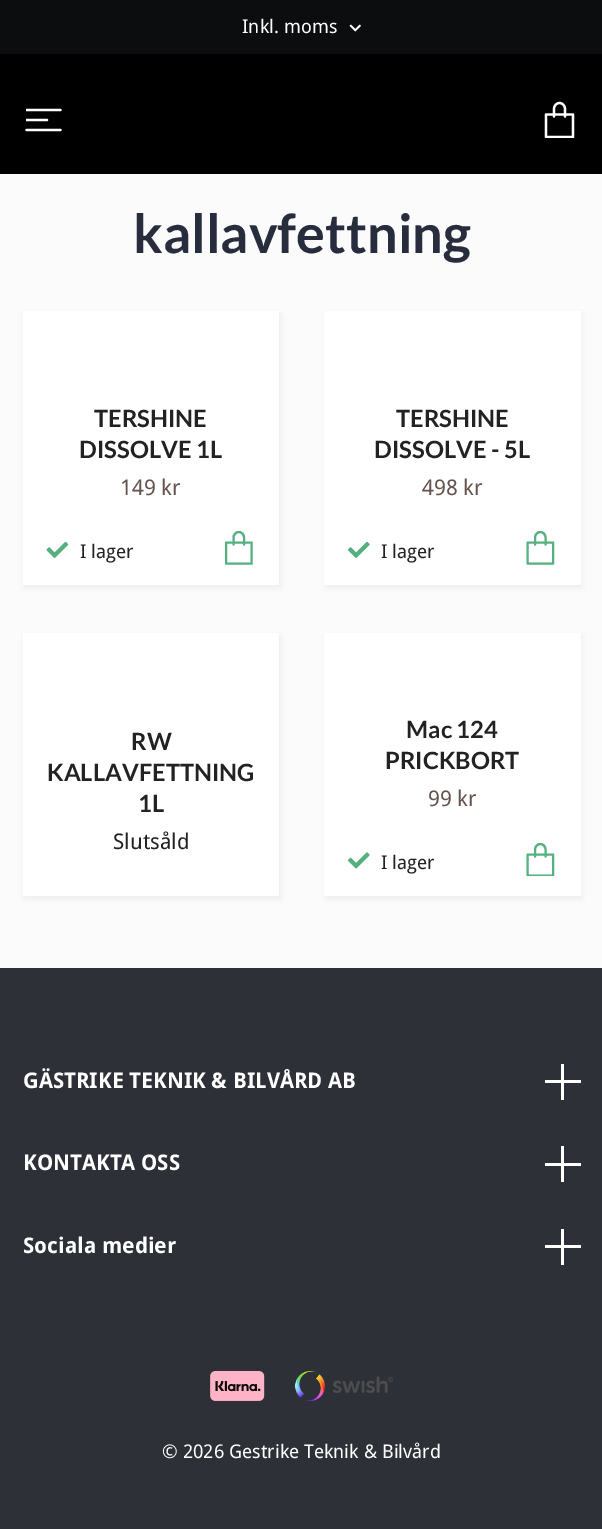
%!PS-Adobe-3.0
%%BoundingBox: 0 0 602 1529
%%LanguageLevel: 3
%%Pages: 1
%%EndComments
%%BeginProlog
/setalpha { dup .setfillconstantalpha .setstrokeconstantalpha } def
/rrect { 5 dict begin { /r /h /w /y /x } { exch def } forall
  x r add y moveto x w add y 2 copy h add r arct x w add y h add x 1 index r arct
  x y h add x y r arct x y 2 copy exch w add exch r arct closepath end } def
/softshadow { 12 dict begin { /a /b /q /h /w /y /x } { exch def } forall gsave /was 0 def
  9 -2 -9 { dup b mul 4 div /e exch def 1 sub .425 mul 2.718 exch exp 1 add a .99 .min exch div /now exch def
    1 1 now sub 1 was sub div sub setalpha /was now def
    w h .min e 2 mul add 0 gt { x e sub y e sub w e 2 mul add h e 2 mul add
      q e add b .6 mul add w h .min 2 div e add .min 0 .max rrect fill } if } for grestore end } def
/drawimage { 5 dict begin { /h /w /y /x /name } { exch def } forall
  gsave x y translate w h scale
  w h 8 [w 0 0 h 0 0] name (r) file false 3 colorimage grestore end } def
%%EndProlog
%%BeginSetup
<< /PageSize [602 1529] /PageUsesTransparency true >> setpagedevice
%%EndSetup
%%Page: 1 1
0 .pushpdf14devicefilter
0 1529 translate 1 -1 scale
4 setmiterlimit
0.984 setgray
0 0 602 1529 rectfill
0.043 0.051 0.055 setrgbcolor
0 0 602 54 rectfill
(images/1.raw) 349 24 12 8 drawimage
0 setgray
0 54 602 120 rectfill
gsave
26 102 36 36 rectclip
1 setgray
2.2 setlinewidth
1 setlinecap
1 setlinejoin
newpath 26.5 110 moveto 60.5 110 lineto 26.5 120 moveto 47 120 lineto stroke
grestore
1 setgray
2.2 setlinewidth
1 setlinecap
1 setlinejoin
newpath 26.5 130 moveto 60.5 130 lineto stroke
gsave
542 102 36 36 rectclip
newpath 546 114.5 moveto 573 114.5 lineto 573 137 lineto 546 137 lineto closepath stroke
grestore
newpath 554 116.5 moveto 554 109 lineto 554 105.5 556.5 103 559.5 103 curveto 562.5 103 565 105.5 565 109 curveto 565 116.5 lineto stroke
0 setgray
24 314 257 274 0 3 0.05 softshadow
1 setgray
23 311 256 274 rectfill
(images/2.raw) 46 541 23 17 drawimage
0.333 0.69 0.498 setrgbcolor
2.1 setlinewidth
newpath 226 542.5 moveto 251.5 542.5 lineto 251.5 563.5 lineto 226 563.5 lineto closepath 233.5 544.5 moveto 233.5 537.5 lineto 233.5 534.5 236 532 239 532 curveto 241.5 532 244 534.5 244 537.5 curveto 244 544.5 lineto stroke
0 setgray
326 314 256 274 0 3 0.05 softshadow
1 setgray
324 311 257 274 rectfill
(images/3.raw) 348 541 22 17 drawimage
0.333 0.69 0.498 setrgbcolor
newpath 527.5 542.5 moveto 553 542.5 lineto 553 563.5 lineto 527.5 563.5 lineto closepath 535 544.5 moveto 535 537.5 lineto 535 534.5 537.5 532 540.5 532 curveto 543 532 545.5 534.5 545.5 537.5 curveto 545.5 544.5 lineto stroke
0 setgray
24 636 257 263 0 3 0.05 softshadow
1 setgray
23 633 256 263 rectfill
0 setgray
326 636 256 263 0 3 0.05 softshadow
1 setgray
324 633 257 263 rectfill
(images/4.raw) 348 852 22 17 drawimage
gsave
524 843 33 33 rectclip
0.333 0.69 0.498 setrgbcolor
newpath 527.5 854.5 moveto 553 854.5 lineto 553 875.5 lineto 527.5 875.5 lineto closepath stroke
grestore
0.333 0.69 0.498 setrgbcolor
newpath 535 856.5 moveto 535 849.5 lineto 535 846.5 537.5 844 540.5 844 curveto 543 844 545.5 846.5 545.5 849.5 curveto 545.5 856.5 lineto stroke
0.18 0.188 0.22 setrgbcolor
0 968 602 561 rectfill
1 setgray
561 1064 3 36 rectfill
545 1080 36 3 rectfill
561 1146 3 36 rectfill
545 1163 36 3 rectfill
561 1229 3 36 rectfill
545 1245 36 3 rectfill
(images/5.raw) 210 1371 55 30 drawimage
(images/6.raw) 294 1371 99 30 drawimage
/DroidSans-Regular [18.9 0 0 -18.9 0 0] selectfont
242 33 moveto (Inkl. moms) show
/Lato-Bold [54 0 0 -54 0 0] selectfont
0.153 0.176 0.239 setrgbcolor
133 253 moveto (kallavfettning) show
/Lato-Bold [23.75 0 0 -23.75 0 0] selectfont
0.133 setgray
94 427 moveto (TERSHINE) show
79 458 moveto (DISSOLVE 1L) show
/DroidSans-Regular [21.6 0 0 -21.6 0 0] selectfont
0.392 0.325 0.302 setrgbcolor
120 495 moveto (149 kr) show
/DroidSans-Regular [18.9 0 0 -18.9 0 0] selectfont
0.133 setgray
80 558 moveto (I lager) show
/Lato-Bold [23.75 0 0 -23.75 0 0] selectfont
396 427 moveto (TERSHINE) show
374 458 moveto (DISSOLVE - 5L) show
/DroidSans-Regular [21.6 0 0 -21.6 0 0] selectfont
0.392 0.325 0.302 setrgbcolor
422 495 moveto (498 kr) show
/DroidSans-Regular [18.9 0 0 -18.9 0 0] selectfont
0.133 setgray
381 558 moveto (I lager) show
/Lato-Bold [23.75 0 0 -23.75 0 0] selectfont
131 750 moveto (RW) show
47 781 moveto (KALLAVFETTNING) show
138 812 moveto (1L) show
/DroidSans-Regular [21.6 0 0 -21.6 0 0] selectfont
113 849 moveto (Slutsåld) show
/Lato-Bold [23.75 0 0 -23.75 0 0] selectfont
406 738 moveto (Mac 124) show
385 769 moveto (PRICKBORT) show
/DroidSans-Regular [21.6 0 0 -21.6 0 0] selectfont
0.392 0.325 0.302 setrgbcolor
428 806 moveto (99 kr) show
/DroidSans-Regular [18.9 0 0 -18.9 0 0] selectfont
0.133 setgray
381 869 moveto (I lager) show
/DroidSans-Bold [21.6 0 0 -21.6 0 0] selectfont
1 setgray
23 1088 moveto (GÄSTRIKE TEKNIK & BILVÅRD AB) show
23 1170 moveto (KONTAKTA OSS) show
23 1253 moveto (Sociala medier) show
/DroidSans-Regular [18.9 0 0 -18.9 0 0] selectfont
162 1458 moveto (© 2026 Gestrike Teknik & Bilvård) show
.poppdf14devicefilter showpage
%%EOF
